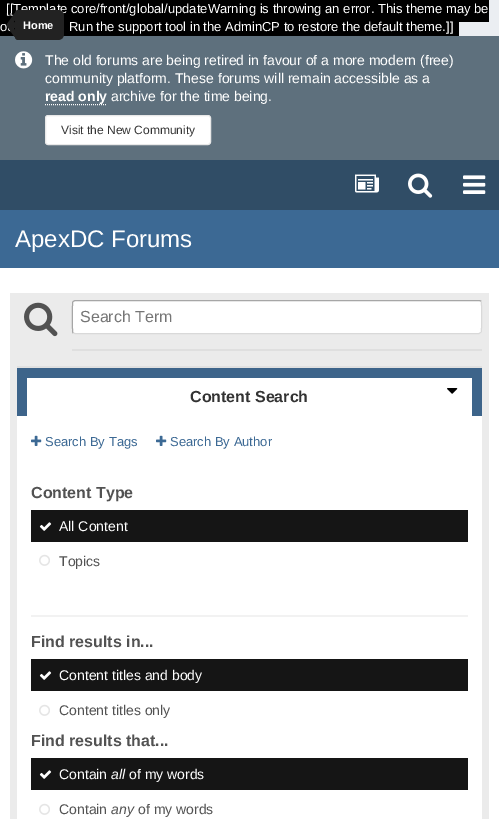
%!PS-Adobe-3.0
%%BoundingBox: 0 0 499 819
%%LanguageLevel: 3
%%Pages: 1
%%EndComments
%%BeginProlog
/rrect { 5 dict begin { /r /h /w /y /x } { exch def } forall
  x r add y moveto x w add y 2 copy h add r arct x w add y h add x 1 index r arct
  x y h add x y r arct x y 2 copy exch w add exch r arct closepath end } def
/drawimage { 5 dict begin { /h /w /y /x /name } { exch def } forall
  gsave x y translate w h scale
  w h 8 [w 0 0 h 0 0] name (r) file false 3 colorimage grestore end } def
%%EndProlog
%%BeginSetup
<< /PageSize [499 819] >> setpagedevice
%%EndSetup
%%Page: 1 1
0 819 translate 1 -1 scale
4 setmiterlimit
0.922 0.933 0.949 setrgbcolor
0 0 499 819 rectfill
0 setgray
0 0 489 22 rectfill
0 22 459 14 rectfill
0.188 0.302 0.4 setrgbcolor
0 160 499 50 rectfill
(images/2.raw) 355 174 24 19 drawimage
(images/3.raw) 408 173 25 25 drawimage
(images/4.raw) 463 175 23 19 drawimage
0.369 0.439 0.49 setrgbcolor
0 36 499 124 rectfill
(images/5.raw) 15 51 18 18 drawimage
1 setgray
[1 1] 0 setdash
newpath 45 104.5 moveto 107 104.5 lineto stroke
45.5 115.5 165 29 2.5 rrect gsave fill grestore
0.91 setgray
[] 0 setdash
stroke
0.235 0.412 0.58 setrgbcolor
0 210 499 58 rectfill
1 setgray
0 268 499 551 rectfill
0.922 setgray
10 293 479 526 rectfill
(images/6.raw) 24 302 34 35 drawimage
1 setgray
72 300 410 34 3 rrect fill
0.851 setgray
newpath 481 301 moveto 482 302.5 482 331 481 332.5 curveto 479 333.5 lineto 75 333.5 lineto 73 333 lineto stroke
0.651 setgray
newpath 73 333 moveto 72 331.5 72 303 73 301.5 curveto 75 300.5 lineto 479 300.5 lineto 481 301 lineto stroke
0.875 setgray
72 349 410 2 rectfill
0.239 0.392 0.541 setrgbcolor
17 368 465 48 rectfill
0.878 setgray
17 366 465 2 rectfill
1 setgray
27 378 445 38 rectfill
(images/7.raw) 447 388 11 6 drawimage
17 416 465 403 rectfill
(images/8.raw) 31 435 11 11 drawimage
(images/8.raw) 156 435 11 11 drawimage
0.082 setgray
31 510 437 32 rectfill
(images/9.raw) 39 522 13 9 drawimage
(images/10.raw) 39 554 11 12 drawimage
0.949 setgray
31 615 437 2 rectfill
0.082 setgray
31 659 437 32 rectfill
(images/9.raw) 39 671 13 9 drawimage
(images/10.raw) 39 704 11 12 drawimage
31 758 437 32 rectfill
(images/9.raw) 39 770 13 9 drawimage
(images/10.raw) 39 803 11 12 drawimage
/LiberationSans-Regular [13 0 0 -13 0 0] selectfont
1 setgray
6 13 moveto ([[Template core/front/global/updateWarning is throwing an error. This theme may be) show
0 31 moveto (o) show
0.133 setgray
newpath 18 10 moveto 58 10 lineto 61.5 10 64 12.5 64 16 curveto 64 34 lineto 64 37.5 61.5 40 58 40 curveto 18 40 lineto 16.5 40 15 38.5 15 37 curveto 15 13 lineto 15 11.5 16.5 10 18 10 curveto closepath fill
(images/1.raw) 6 13 9 25 drawimage
/LiberationSans-Bold [11 0 0 -11 0 0] selectfont
1 setgray
23 29 moveto (Home) show
/LiberationSans-Regular [13 0 0 -13 0 0] selectfont
69 31 moveto (Run the support tool in the AdminCP to restore the default theme.]]) show
/LiberationSans-Regular [14 0 0 -14 0 0] selectfont
45 65 moveto (The old forums are being retired in favour of a more modern \(free\)) show
45 83 moveto (community platform. These forums will remain accessible as a) show
/LiberationSans-Bold [14 0 0 -14 0 0] selectfont
45 101 moveto (read only) show
/LiberationSans-Regular [14 0 0 -14 0 0] selectfont
111 101 moveto (archive for the time being.) show
/LiberationSans-Regular [12 0 0 -12 0 0] selectfont
0.2 setgray
61 134 moveto (Visit the New Community) show
/LiberationSans-Regular [24 0 0 -24 0 0] selectfont
1 setgray
15 247 moveto (ApexDC Forums) show
/LiberationSans-Regular [16 0 0 -16 0 0] selectfont
0.459 setgray
80 322 moveto (Search Term) show
/LiberationSans-Bold [16 0 0 -16 0 0] selectfont
0.2 setgray
190 402 moveto (Content Search) show
/LiberationSans-Regular [13 0 0 -13 0 0] selectfont
0.235 0.412 0.58 setrgbcolor
45 446 moveto (Search By Tags) show
170 446 moveto (Search By Author) show
/LiberationSans-Bold [16 0 0 -16 0 0] selectfont
0.322 setgray
31 498 moveto (Content Type) show
/LiberationSans-Regular [14 0 0 -14 0 0] selectfont
1 setgray
59 531 moveto (All Content) show
0.322 setgray
59 566 moveto (Topics) show
/LiberationSans-Bold [16 0 0 -16 0 0] selectfont
31 647 moveto (Find results in...) show
/LiberationSans-Regular [14 0 0 -14 0 0] selectfont
1 setgray
59 680 moveto (Content titles and body) show
0.322 setgray
59 715 moveto (Content titles only) show
/LiberationSans-Bold [16 0 0 -16 0 0] selectfont
31 746 moveto (Find results that...) show
/LiberationSans-Regular [14 0 0 -14 0 0] selectfont
1 setgray
59 779 moveto (Contain) show
/LiberationSans-Italic [14 0 0 -14 0 0] selectfont
111 779 moveto (all) show
/LiberationSans-Regular [14 0 0 -14 0 0] selectfont
129 779 moveto (of my words) show
0.322 setgray
59 814 moveto (Contain) show
/LiberationSans-Italic [14 0 0 -14 0 0] selectfont
111 814 moveto (any) show
/LiberationSans-Regular [14 0 0 -14 0 0] selectfont
138 814 moveto (of my words) show
showpage
%%EOF
